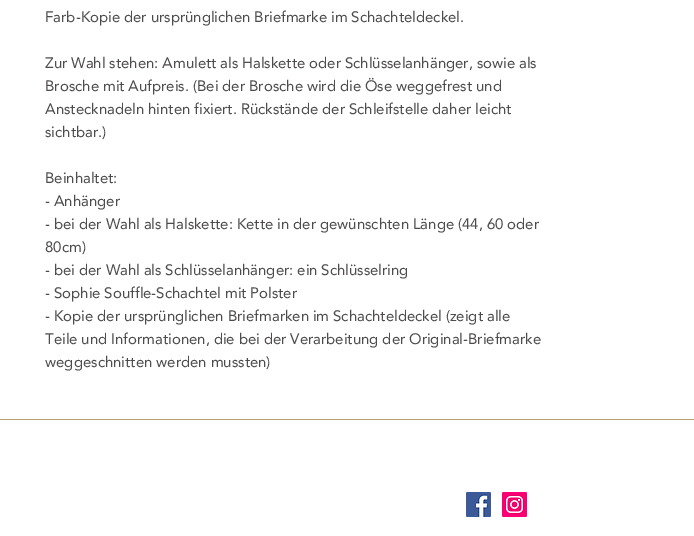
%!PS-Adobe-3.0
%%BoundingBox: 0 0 694 536
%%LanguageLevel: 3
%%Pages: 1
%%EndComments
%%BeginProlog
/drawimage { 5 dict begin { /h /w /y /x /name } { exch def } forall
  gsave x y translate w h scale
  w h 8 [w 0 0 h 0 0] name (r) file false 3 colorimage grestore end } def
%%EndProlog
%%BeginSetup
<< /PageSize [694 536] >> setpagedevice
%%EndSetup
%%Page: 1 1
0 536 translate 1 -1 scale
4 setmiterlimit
1 setgray
0 0 694 536 rectfill
0.69 0.631 0.443 setrgbcolor
0 419 694 1 rectfill
(images/1.raw) 466 492 25 25 drawimage
(images/2.raw) 502 492 25 25 drawimage
/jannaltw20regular-Regular [15 0 0 -15 0 0] selectfont
0.302 0.294 0.294 setrgbcolor
45 22 moveto (Farb-Kopie der ursprünglichen Briefmarke im Schachteldeckel.) show
45 68 moveto (Zur Wahl stehen: Amulett als Halskette oder Schlüsselanhänger, sowie als) show
45 91 moveto (Brosche mit Aufpreis. \(Bei der Brosche wird die Öse weggefrest und) show
45 114 moveto (Anstecknadeln hinten fixiert. Rückstände der Schleifstelle daher leicht) show
45 137 moveto (sichtbar.\)) show
45 183 moveto (Beinhaltet:) show
45 206 moveto (- Anhänger) show
45 229 moveto (- bei der Wahl als Halskette: Kette in der gewünschten Länge \(44, 60 oder) show
45 252 moveto (80cm\)) show
45 275 moveto (- bei der Wahl als Schlüsselanhänger: ein Schlüsselring) show
45 298 moveto (- Sophie Souffle-Schachtel mit Polster) show
45 321 moveto (- Kopie der ursprünglichen Briefmarken im Schachteldeckel \(zeigt alle) show
45 344 moveto (Teile und Informationen, die bei der Verarbeitung der Original-Briefmarke) show
45 367 moveto (weggeschnitten werden mussten\)) show
showpage
%%EOF
